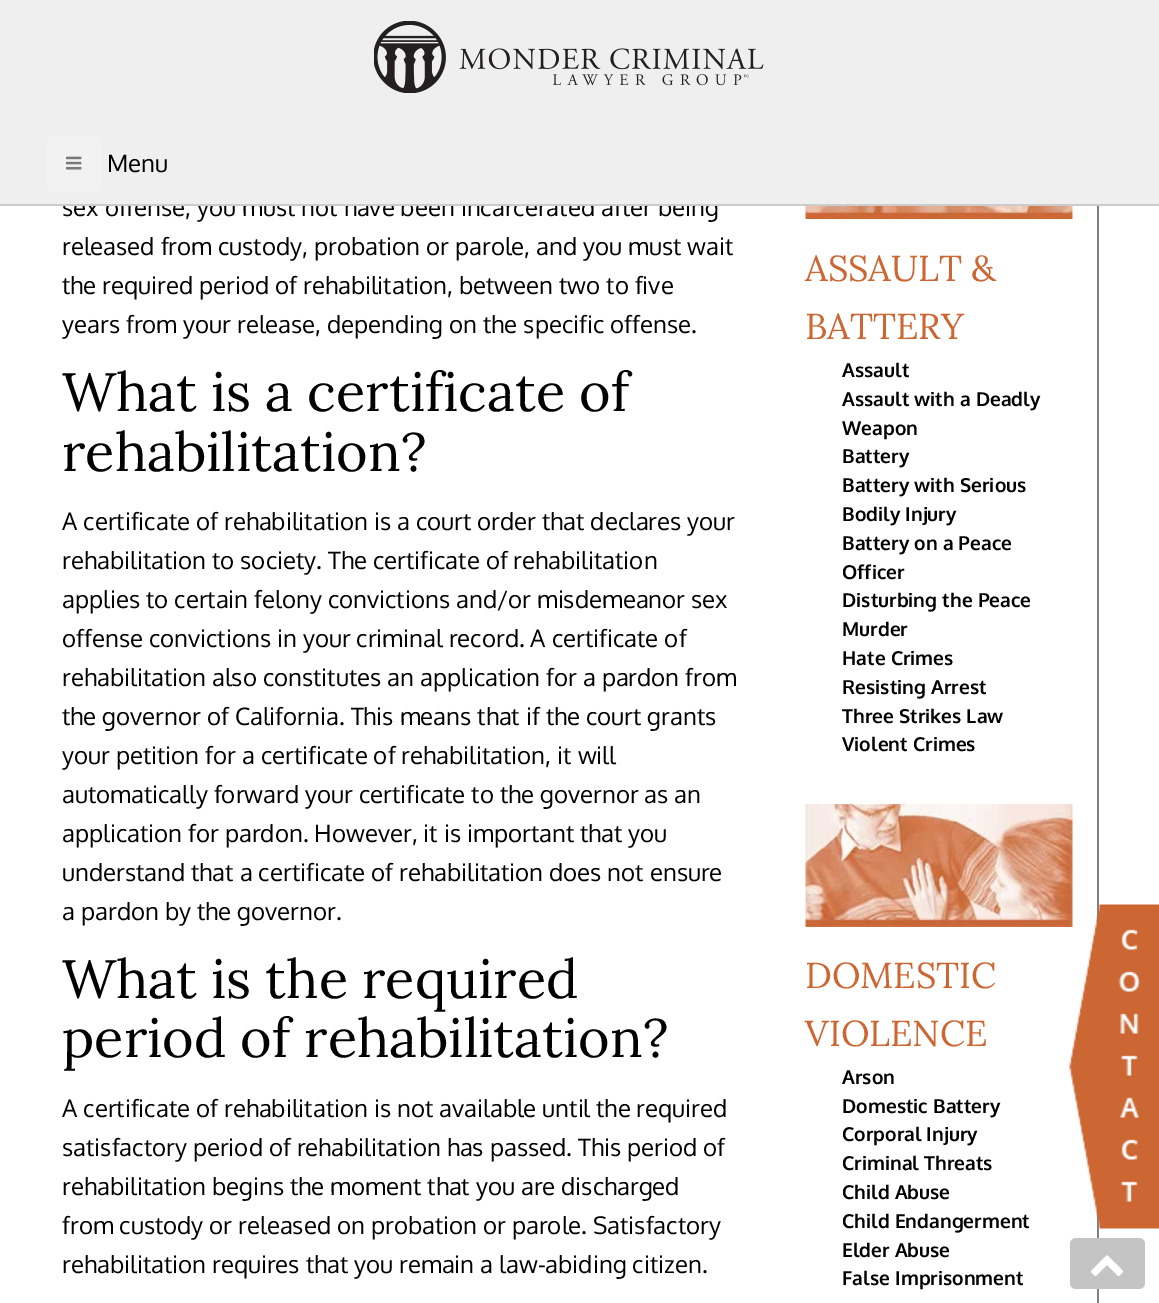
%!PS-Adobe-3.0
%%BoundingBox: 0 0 1159 1303
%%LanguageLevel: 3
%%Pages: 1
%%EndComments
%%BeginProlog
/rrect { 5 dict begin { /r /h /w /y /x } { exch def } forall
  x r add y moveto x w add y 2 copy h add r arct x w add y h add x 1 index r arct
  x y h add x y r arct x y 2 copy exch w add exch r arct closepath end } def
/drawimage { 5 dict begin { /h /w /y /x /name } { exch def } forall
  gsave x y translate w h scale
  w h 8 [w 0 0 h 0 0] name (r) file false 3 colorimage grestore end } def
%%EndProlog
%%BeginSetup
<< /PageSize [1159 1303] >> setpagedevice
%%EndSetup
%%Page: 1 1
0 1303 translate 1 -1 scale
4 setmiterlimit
1 setgray
0 0 1159 1303 rectfill
0.502 setgray
1097 206 2 1097 rectfill
(images/3.raw) 805 206 268 13 drawimage
(images/4.raw) 805 804 268 123 drawimage
(images/5.raw) 1069 904 90 325 drawimage
0.769 setgray
1070 1238 75 51 6 rrect fill
(images/6.raw) 1090 1255 34 21 drawimage
/Oxygen-Regular [24 0 0 -24 0 0] selectfont
0 setgray
62 216 moveto (sex offense, you must not have been incarcerated after being) show
0.937 setgray
0 0 1159 204 rectfill
0.949 setgray
47 135 54 57 6 rrect fill
(images/2.raw) 66 156 16 14 drawimage
0 setgray
107 172 moveto (Menu) show
(images/1.raw) 374 21 390 72 drawimage
0.8 setgray
0 204 1159 2 rectfill
0 setgray
62 255 moveto (released from custody, probation or parole, and you must wait) show
62 294 moveto (the required period of rehabilitation, between two to five) show
62 333 moveto (years from your release, depending on the specific offense.) show
/Lora-Regular [54 0 0 -54 0 0] selectfont
62 411 moveto (What is a certificate of) show
62 471 moveto (rehabilitation?) show
/Oxygen-Regular [24 0 0 -24 0 0] selectfont
62 530 moveto (A certificate of rehabilitation is a court order that declares your) show
62 569 moveto (rehabilitation to society. The certificate of rehabilitation) show
62 608 moveto (applies to certain felony convictions and/or misdemeanor sex) show
62 647 moveto (offense convictions in your criminal record. A certificate of) show
62 686 moveto (rehabilitation also constitutes an application for a pardon from) show
62 725 moveto (the governor of California. This means that if the court grants) show
62 764 moveto (your petition for a certificate of rehabilitation, it will) show
62 803 moveto (automatically forward your certificate to the governor as an) show
62 842 moveto (application for pardon. However, it is important that you) show
62 881 moveto (understand that a certificate of rehabilitation does not ensure) show
62 920 moveto (a pardon by the governor.) show
/Lora-Regular [54 0 0 -54 0 0] selectfont
62 998 moveto (What is the required) show
62 1057 moveto (period of rehabilitation?) show
/Oxygen-Regular [24 0 0 -24 0 0] selectfont
62 1117 moveto (A certificate of rehabilitation is not available until the required) show
62 1156 moveto (satisfactory period of rehabilitation has passed. This period of) show
62 1195 moveto (rehabilitation begins the moment that you are discharged) show
62 1234 moveto (from custody or released on probation or parole. Satisfactory) show
62 1273 moveto (rehabilitation requires that you remain a law-abiding citizen.) show
/Lora-Regular [36 0 0 -36 0 0] selectfont
0.8 0.4 0.2 setrgbcolor
805 281 moveto (ASSAULT &) show
805 339 moveto (BATTERY) show
/Oxygen-Bold [19.25 0 0 -19.25 0 0] selectfont
0 setgray
842 377 moveto (Assault) show
842 406 moveto (Assault with a Deadly) show
842 435 moveto (Weapon) show
842 463 moveto (Battery) show
842 492 moveto (Battery with Serious) show
842 521 moveto (Bodily Injury) show
842 550 moveto (Battery on a Peace) show
842 579 moveto (Officer) show
842 607 moveto (Disturbing the Peace) show
842 636 moveto (Murder) show
842 665 moveto (Hate Crimes) show
842 694 moveto (Resisting Arrest) show
842 723 moveto (Three Strikes Law) show
842 751 moveto (Violent Crimes) show
/Lora-Regular [36 0 0 -36 0 0] selectfont
0.8 0.4 0.2 setrgbcolor
805 988 moveto (DOMESTIC) show
805 1046 moveto (VIOLENCE) show
/Oxygen-Bold [19.25 0 0 -19.25 0 0] selectfont
0 setgray
842 1084 moveto (Arson) show
842 1113 moveto (Domestic Battery) show
842 1141 moveto (Corporal Injury) show
842 1170 moveto (Criminal Threats) show
842 1199 moveto (Child Abuse) show
842 1228 moveto (Child Endangerment) show
842 1257 moveto (Elder Abuse) show
842 1285 moveto (False Imprisonment) show
showpage
%%EOF
